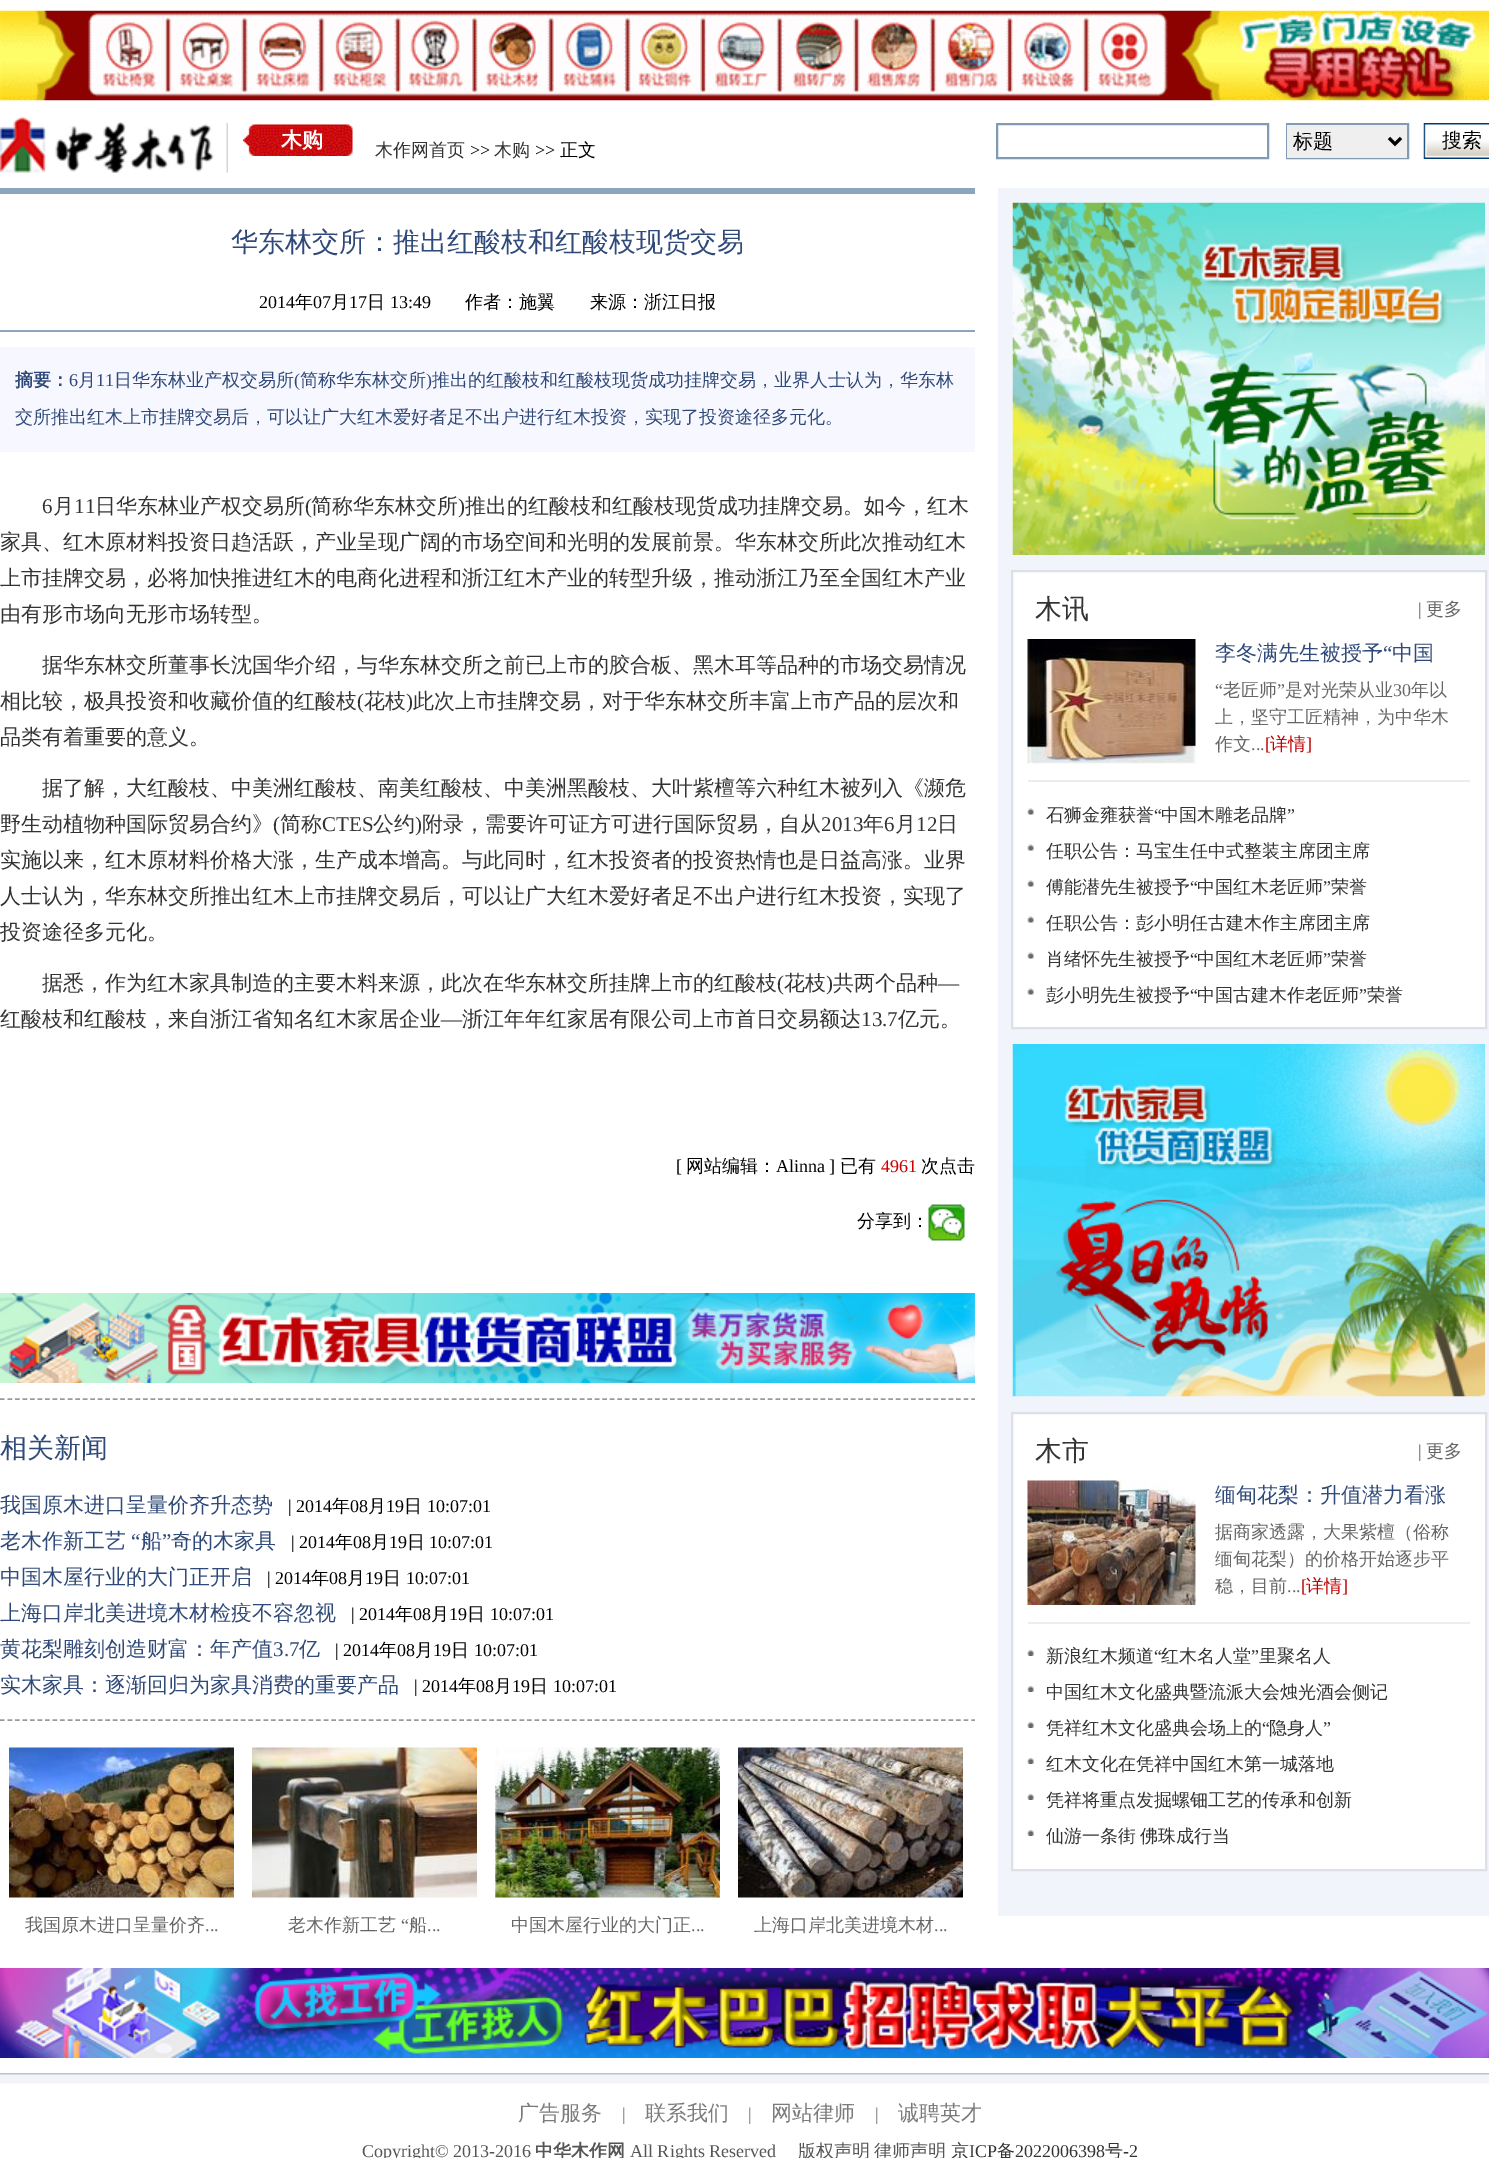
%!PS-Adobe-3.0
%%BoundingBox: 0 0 1489 2158
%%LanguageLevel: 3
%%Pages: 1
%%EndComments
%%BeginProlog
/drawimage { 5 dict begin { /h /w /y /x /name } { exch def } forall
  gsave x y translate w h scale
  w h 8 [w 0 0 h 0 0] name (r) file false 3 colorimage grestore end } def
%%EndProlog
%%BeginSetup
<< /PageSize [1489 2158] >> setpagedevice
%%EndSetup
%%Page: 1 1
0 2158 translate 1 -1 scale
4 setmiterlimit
1 setgray
0 0 1489 2158 rectfill
(images/1.raw) 0 10 1489 91 drawimage
(images/2.raw) 0 116 228 57 drawimage
(images/3.raw) 243 124 110 32 drawimage
0.506 0.608 0.706 setrgbcolor
2 setlinewidth
997 124 271 34 rectstroke
1287 124 121 34 rectstroke
0.937 setgray
1287 125 120 33 rectfill
0 setgray
3 setlinewidth
newpath 1389 138 moveto 1395 144 lineto 1401 138 lineto stroke
(images/4.raw) 1423 123 66 36 drawimage
0.545 0.647 0.749 setrgbcolor
0 188 975 6 rectfill
0 330 975 2 rectfill
0.969 0.969 1 setrgbcolor
0 347 975 105 rectfill
(images/5.raw) 928 1204 37 37 drawimage
0.6 setgray
1.5 setlinewidth
[4.5 3.03] 0 setdash
newpath 0 1399 moveto 975 1399 lineto stroke
(images/6.raw) 0 1293 975 90 drawimage
newpath 0 1720 moveto 975 1720 lineto stroke
(images/7.raw) 9 1747 225 151 drawimage
(images/8.raw) 252 1747 225 151 drawimage
(images/9.raw) 495 1747 225 151 drawimage
(images/10.raw) 738 1747 225 151 drawimage
0.945 0.957 0.98 setrgbcolor
998 188 491 1728 rectfill
(images/11.raw) 1012 202 473 353 drawimage
1 setgray
newpath 1012 571 moveto 1486 571 lineto 1486 1028 lineto 1012 1028 lineto closepath gsave fill grestore
0.867 0.878 0.902 setrgbcolor
2 setlinewidth
[] 0 setdash
stroke
(images/12.raw) 1027 639 169 125 drawimage
0.91 0.933 0.949 setrgbcolor
1028 780 442 2 rectfill
(images/13.raw) 1027 808 7 7 drawimage
(images/13.raw) 1027 844 7 7 drawimage
(images/13.raw) 1027 880 7 7 drawimage
(images/13.raw) 1027 916 7 7 drawimage
(images/13.raw) 1027 952 7 7 drawimage
(images/13.raw) 1027 988 7 7 drawimage
(images/14.raw) 1012 1044 473 353 drawimage
1 setgray
newpath 1012 1413 moveto 1486 1413 lineto 1486 1870 lineto 1012 1870 lineto closepath gsave fill grestore
0.867 0.878 0.902 setrgbcolor
stroke
(images/15.raw) 1027 1480 169 125 drawimage
0.91 0.933 0.949 setrgbcolor
1028 1622 442 2 rectfill
(images/16.raw) 1027 1650 7 6 drawimage
(images/16.raw) 1027 1686 7 6 drawimage
(images/16.raw) 1027 1722 7 6 drawimage
(images/16.raw) 1027 1758 7 6 drawimage
(images/16.raw) 1027 1794 7 6 drawimage
(images/16.raw) 1027 1830 7 6 drawimage
(images/17.raw) 0 1968 1489 90 drawimage
(images/18.raw) 0 2073 1489 11 drawimage
/WenQuanYiZenHei-Bold [21 0 0 -21 0 0] selectfont
1 setgray
281 147 moveto (木购) show
/WenQuanYiZenHei-Medium [18 0 0 -18 0 0] selectfont
0.2 setgray
375 156 moveto (木作网首页) show
/LiberationSerif-Regular [18 0 0 -18 0 0] selectfont
0 setgray
470 156 moveto (>>) show
/WenQuanYiZenHei-Medium [18 0 0 -18 0 0] selectfont
0.2 setgray
494 156 moveto (木购) show
/LiberationSerif-Regular [18 0 0 -18 0 0] selectfont
0 setgray
535 156 moveto (>>) show
/WenQuanYiZenHei-Medium [18 0 0 -18 0 0] selectfont
560 156 moveto (正文) show
/WenQuanYiZenHei-Medium [20 0 0 -20 0 0] selectfont
1293 148 moveto (标题) show
1442 147 moveto (搜索) show
/WenQuanYiZenHei-Medium [27 0 0 -27 0 0] selectfont
0.184 0.286 0.475 setrgbcolor
231 251 moveto (华东林交所：推出红酸枝和红酸枝现货交易) show
/LiberationSerif-Regular [18 0 0 -18 0 0] selectfont
0 setgray
259 308 moveto (2014) show
/WenQuanYiZenHei-Medium [18 0 0 -18 0 0] selectfont
295 308 moveto (年) show
/LiberationSerif-Regular [18 0 0 -18 0 0] selectfont
313 308 moveto (07) show
/WenQuanYiZenHei-Medium [18 0 0 -18 0 0] selectfont
331 308 moveto (月) show
/LiberationSerif-Regular [18 0 0 -18 0 0] selectfont
349 308 moveto (17) show
/WenQuanYiZenHei-Medium [18 0 0 -18 0 0] selectfont
367 308 moveto (日) show
/LiberationSerif-Regular [18 0 0 -18 0 0] selectfont
390 308 moveto (13:49) show
/WenQuanYiZenHei-Medium [18 0 0 -18 0 0] selectfont
465 308 moveto (作者：施翼) show
590 308 moveto (来源：浙江日报) show
/WenQuanYiZenHei-Bold [18 0 0 -18 0 0] selectfont
0.184 0.286 0.475 setrgbcolor
15 386 moveto (摘要：) show
/LiberationSerif-Regular [18 0 0 -18 0 0] selectfont
69 386 moveto (6) show
/WenQuanYiZenHei-Medium [18 0 0 -18 0 0] selectfont
78 386 moveto (月) show
/LiberationSerif-Regular [18 0 0 -18 0 0] selectfont
96 386 moveto (11) show
/WenQuanYiZenHei-Medium [18 0 0 -18 0 0] selectfont
114 386 moveto (日华东林业产权交易所) show
/LiberationSerif-Regular [18 0 0 -18 0 0] selectfont
294 386 moveto (\() show
/WenQuanYiZenHei-Medium [18 0 0 -18 0 0] selectfont
300 386 moveto (简称华东林交所) show
/LiberationSerif-Regular [18 0 0 -18 0 0] selectfont
426 386 moveto (\)) show
/WenQuanYiZenHei-Medium [18 0 0 -18 0 0] selectfont
432 386 moveto (推出的红酸枝和红酸枝现货成功挂牌交易，业界人士认为，华东林) show
15 423 moveto (交所推出红木上市挂牌交易后，可以让广大红木爱好者足不出户进行红木投资，实现了投资途径多元化。) show
/LiberationSerif-Regular [21 0 0 -21 0 0] selectfont
0.2 setgray
42 513 moveto (6) show
/WenQuanYiZenHei-Medium [21 0 0 -21 0 0] selectfont
53 513 moveto (月) show
/LiberationSerif-Regular [21 0 0 -21 0 0] selectfont
74 513 moveto (11) show
/WenQuanYiZenHei-Medium [21 0 0 -21 0 0] selectfont
95 513 moveto (日华东林业产权交易所) show
/LiberationSerif-Regular [21 0 0 -21 0 0] selectfont
305 513 moveto (\() show
/WenQuanYiZenHei-Medium [21 0 0 -21 0 0] selectfont
311 513 moveto (简称华东林交所) show
/LiberationSerif-Regular [21 0 0 -21 0 0] selectfont
458 513 moveto (\)) show
/WenQuanYiZenHei-Medium [21 0 0 -21 0 0] selectfont
465 513 moveto (推出的红酸枝和红酸枝现货成功挂牌交易。如今，红木) show
0 549 moveto (家具、红木原材料投资日趋活跃，产业呈现广阔的市场空间和光明的发展前景。华东林交所此次推动红木) show
0 585 moveto (上市挂牌交易，必将加快推进红木的电商化进程和浙江红木产业的转型升级，推动浙江乃至全国红木产业) show
0 621 moveto (由有形市场向无形市场转型。) show
42 672 moveto (据华东林交所董事长沈国华介绍，与华东林交所之前已上市的胶合板、黑木耳等品种的市场交易情况) show
0 708 moveto (相比较，极具投资和收藏价值的红酸枝) show
/LiberationSerif-Regular [21 0 0 -21 0 0] selectfont
357 708 moveto (\() show
/WenQuanYiZenHei-Medium [21 0 0 -21 0 0] selectfont
364 708 moveto (花枝) show
/LiberationSerif-Regular [21 0 0 -21 0 0] selectfont
406 708 moveto (\)) show
/WenQuanYiZenHei-Medium [21 0 0 -21 0 0] selectfont
413 708 moveto (此次上市挂牌交易，对于华东林交所丰富上市产品的层次和) show
0 744 moveto (品类有着重要的意义。) show
42 795 moveto (据了解，大红酸枝、中美洲红酸枝、南美红酸枝、中美洲黑酸枝、大叶紫檀等六种红木被列入《濒危) show
0 831 moveto (野生动植物种国际贸易合约》) show
/LiberationSerif-Regular [21 0 0 -21 0 0] selectfont
273 831 moveto (\() show
/WenQuanYiZenHei-Medium [21 0 0 -21 0 0] selectfont
280 831 moveto (简称) show
/LiberationSerif-Regular [21 0 0 -21 0 0] selectfont
322 831 moveto (CTES) show
/WenQuanYiZenHei-Medium [21 0 0 -21 0 0] selectfont
373 831 moveto (公约) show
/LiberationSerif-Regular [21 0 0 -21 0 0] selectfont
415 831 moveto (\)) show
/WenQuanYiZenHei-Medium [21 0 0 -21 0 0] selectfont
422 831 moveto (附录，需要许可证方可进行国际贸易，自从) show
/LiberationSerif-Regular [21 0 0 -21 0 0] selectfont
821 831 moveto (2013) show
/WenQuanYiZenHei-Medium [21 0 0 -21 0 0] selectfont
863 831 moveto (年) show
/LiberationSerif-Regular [21 0 0 -21 0 0] selectfont
884 831 moveto (6) show
/WenQuanYiZenHei-Medium [21 0 0 -21 0 0] selectfont
895 831 moveto (月) show
/LiberationSerif-Regular [21 0 0 -21 0 0] selectfont
916 831 moveto (12) show
/WenQuanYiZenHei-Medium [21 0 0 -21 0 0] selectfont
937 831 moveto (日) show
0 867 moveto (实施以来，红木原材料价格大涨，生产成本增高。与此同时，红木投资者的投资热情也是日益高涨。业界) show
0 903 moveto (人士认为，华东林交所推出红木上市挂牌交易后，可以让广大红木爱好者足不出户进行红木投资，实现了) show
0 939 moveto (投资途径多元化。) show
42 990 moveto (据悉，作为红木家具制造的主要木料来源，此次在华东林交所挂牌上市的红酸枝) show
/LiberationSerif-Regular [21 0 0 -21 0 0] selectfont
777 990 moveto (\() show
/WenQuanYiZenHei-Medium [21 0 0 -21 0 0] selectfont
784 990 moveto (花枝) show
/LiberationSerif-Regular [21 0 0 -21 0 0] selectfont
826 990 moveto (\)) show
/WenQuanYiZenHei-Medium [21 0 0 -21 0 0] selectfont
833 990 moveto (共两个品种) show
/LiberationSerif-Regular [21 0 0 -21 0 0] selectfont
938 990 moveto (—) show
/WenQuanYiZenHei-Medium [21 0 0 -21 0 0] selectfont
0 1026 moveto (红酸枝和红酸枝，来自浙江省知名红木家居企业) show
/LiberationSerif-Regular [21 0 0 -21 0 0] selectfont
441 1026 moveto (—) show
/WenQuanYiZenHei-Medium [21 0 0 -21 0 0] selectfont
462 1026 moveto (浙江年年红家居有限公司上市首日交易额达) show
/LiberationSerif-Regular [21 0 0 -21 0 0] selectfont
861 1026 moveto (13.7) show
/WenQuanYiZenHei-Medium [21 0 0 -21 0 0] selectfont
898 1026 moveto (亿元。) show
/LiberationSerif-Regular [18 0 0 -18 0 0] selectfont
0 setgray
676 1172 moveto ([) show
/WenQuanYiZenHei-Medium [18 0 0 -18 0 0] selectfont
686 1172 moveto (网站编辑：) show
/LiberationSerif-Regular [18 0 0 -18 0 0] selectfont
776 1172 moveto (Alinna ]) show
/WenQuanYiZenHei-Medium [18 0 0 -18 0 0] selectfont
840 1172 moveto (已有) show
/LiberationSerif-Regular [18 0 0 -18 0 0] selectfont
0.8 0 0 setrgbcolor
881 1172 moveto (4961) show
/WenQuanYiZenHei-Medium [18 0 0 -18 0 0] selectfont
0 setgray
921 1172 moveto (次点击) show
857 1227 moveto (分享到：) show
/WenQuanYiZenHei-Medium [27 0 0 -27 0 0] selectfont
0.184 0.286 0.475 setrgbcolor
0 1457 moveto (相关新闻) show
/WenQuanYiZenHei-Medium [21 0 0 -21 0 0] selectfont
0 1512 moveto (我国原木进口呈量价齐升态势) show
/LiberationSerif-Regular [18 0 0 -18 0 0] selectfont
0 setgray
288 1512 moveto (| 2014) show
/WenQuanYiZenHei-Medium [18 0 0 -18 0 0] selectfont
332 1512 moveto (年) show
/LiberationSerif-Regular [18 0 0 -18 0 0] selectfont
350 1512 moveto (08) show
/WenQuanYiZenHei-Medium [18 0 0 -18 0 0] selectfont
368 1512 moveto (月) show
/LiberationSerif-Regular [18 0 0 -18 0 0] selectfont
386 1512 moveto (19) show
/WenQuanYiZenHei-Medium [18 0 0 -18 0 0] selectfont
404 1512 moveto (日) show
/LiberationSerif-Regular [18 0 0 -18 0 0] selectfont
427 1512 moveto (10:07:01) show
/WenQuanYiZenHei-Medium [21 0 0 -21 0 0] selectfont
0.184 0.286 0.475 setrgbcolor
0 1548 moveto (老木作新工艺) show
/LiberationSerif-Regular [21 0 0 -21 0 0] selectfont
131 1548 moveto (“) show
/WenQuanYiZenHei-Medium [21 0 0 -21 0 0] selectfont
141 1548 moveto (船) show
/LiberationSerif-Regular [21 0 0 -21 0 0] selectfont
162 1548 moveto (”) show
/WenQuanYiZenHei-Medium [21 0 0 -21 0 0] selectfont
171 1548 moveto (奇的木家具) show
/LiberationSerif-Regular [18 0 0 -18 0 0] selectfont
0 setgray
291 1548 moveto (| 2014) show
/WenQuanYiZenHei-Medium [18 0 0 -18 0 0] selectfont
335 1548 moveto (年) show
/LiberationSerif-Regular [18 0 0 -18 0 0] selectfont
353 1548 moveto (08) show
/WenQuanYiZenHei-Medium [18 0 0 -18 0 0] selectfont
371 1548 moveto (月) show
/LiberationSerif-Regular [18 0 0 -18 0 0] selectfont
389 1548 moveto (19) show
/WenQuanYiZenHei-Medium [18 0 0 -18 0 0] selectfont
407 1548 moveto (日) show
/LiberationSerif-Regular [18 0 0 -18 0 0] selectfont
429 1548 moveto (10:07:01) show
/WenQuanYiZenHei-Medium [21 0 0 -21 0 0] selectfont
0.184 0.286 0.475 setrgbcolor
0 1584 moveto (中国木屋行业的大门正开启) show
/LiberationSerif-Regular [18 0 0 -18 0 0] selectfont
0 setgray
267 1584 moveto (| 2014) show
/WenQuanYiZenHei-Medium [18 0 0 -18 0 0] selectfont
311 1584 moveto (年) show
/LiberationSerif-Regular [18 0 0 -18 0 0] selectfont
329 1584 moveto (08) show
/WenQuanYiZenHei-Medium [18 0 0 -18 0 0] selectfont
347 1584 moveto (月) show
/LiberationSerif-Regular [18 0 0 -18 0 0] selectfont
365 1584 moveto (19) show
/WenQuanYiZenHei-Medium [18 0 0 -18 0 0] selectfont
383 1584 moveto (日) show
/LiberationSerif-Regular [18 0 0 -18 0 0] selectfont
406 1584 moveto (10:07:01) show
/WenQuanYiZenHei-Medium [21 0 0 -21 0 0] selectfont
0.184 0.286 0.475 setrgbcolor
0 1620 moveto (上海口岸北美进境木材检疫不容忽视) show
/LiberationSerif-Regular [18 0 0 -18 0 0] selectfont
0 setgray
351 1620 moveto (| 2014) show
/WenQuanYiZenHei-Medium [18 0 0 -18 0 0] selectfont
395 1620 moveto (年) show
/LiberationSerif-Regular [18 0 0 -18 0 0] selectfont
413 1620 moveto (08) show
/WenQuanYiZenHei-Medium [18 0 0 -18 0 0] selectfont
431 1620 moveto (月) show
/LiberationSerif-Regular [18 0 0 -18 0 0] selectfont
449 1620 moveto (19) show
/WenQuanYiZenHei-Medium [18 0 0 -18 0 0] selectfont
467 1620 moveto (日) show
/LiberationSerif-Regular [18 0 0 -18 0 0] selectfont
490 1620 moveto (10:07:01) show
/WenQuanYiZenHei-Medium [21 0 0 -21 0 0] selectfont
0.184 0.286 0.475 setrgbcolor
0 1656 moveto (黄花梨雕刻创造财富：年产值) show
/LiberationSerif-Regular [21 0 0 -21 0 0] selectfont
273 1656 moveto (3.7) show
/WenQuanYiZenHei-Medium [21 0 0 -21 0 0] selectfont
299 1656 moveto (亿) show
/LiberationSerif-Regular [18 0 0 -18 0 0] selectfont
0 setgray
335 1656 moveto (| 2014) show
/WenQuanYiZenHei-Medium [18 0 0 -18 0 0] selectfont
379 1656 moveto (年) show
/LiberationSerif-Regular [18 0 0 -18 0 0] selectfont
397 1656 moveto (08) show
/WenQuanYiZenHei-Medium [18 0 0 -18 0 0] selectfont
415 1656 moveto (月) show
/LiberationSerif-Regular [18 0 0 -18 0 0] selectfont
433 1656 moveto (19) show
/WenQuanYiZenHei-Medium [18 0 0 -18 0 0] selectfont
451 1656 moveto (日) show
/LiberationSerif-Regular [18 0 0 -18 0 0] selectfont
474 1656 moveto (10:07:01) show
/WenQuanYiZenHei-Medium [21 0 0 -21 0 0] selectfont
0.184 0.286 0.475 setrgbcolor
0 1692 moveto (实木家具：逐渐回归为家具消费的重要产品) show
/LiberationSerif-Regular [18 0 0 -18 0 0] selectfont
0 setgray
414 1692 moveto (| 2014) show
/WenQuanYiZenHei-Medium [18 0 0 -18 0 0] selectfont
458 1692 moveto (年) show
/LiberationSerif-Regular [18 0 0 -18 0 0] selectfont
476 1692 moveto (08) show
/WenQuanYiZenHei-Medium [18 0 0 -18 0 0] selectfont
494 1692 moveto (月) show
/LiberationSerif-Regular [18 0 0 -18 0 0] selectfont
512 1692 moveto (19) show
/WenQuanYiZenHei-Medium [18 0 0 -18 0 0] selectfont
530 1692 moveto (日) show
/LiberationSerif-Regular [18 0 0 -18 0 0] selectfont
553 1692 moveto (10:07:01) show
/WenQuanYiZenHei-Medium [18 0 0 -18 0 0] selectfont
0.4 setgray
25 1931 moveto (我国原木进口呈量价齐) show
/LiberationSerif-Regular [18 0 0 -18 0 0] selectfont
205 1931 moveto (...) show
/WenQuanYiZenHei-Medium [18 0 0 -18 0 0] selectfont
288 1931 moveto (老木作新工艺) show
/LiberationSerif-Regular [18 0 0 -18 0 0] selectfont
401 1931 moveto (“) show
/WenQuanYiZenHei-Medium [18 0 0 -18 0 0] selectfont
409 1931 moveto (船) show
/LiberationSerif-Regular [18 0 0 -18 0 0] selectfont
427 1931 moveto (...) show
/WenQuanYiZenHei-Medium [18 0 0 -18 0 0] selectfont
511 1931 moveto (中国木屋行业的大门正) show
/LiberationSerif-Regular [18 0 0 -18 0 0] selectfont
691 1931 moveto (...) show
/WenQuanYiZenHei-Medium [18 0 0 -18 0 0] selectfont
754 1931 moveto (上海口岸北美进境木材) show
/LiberationSerif-Regular [18 0 0 -18 0 0] selectfont
934 1931 moveto (...) show
/WenQuanYiZenHei-Medium [27 0 0 -27 0 0] selectfont
0.2 setgray
1035 618 moveto (木讯) show
/LiberationSerif-Regular [18 0 0 -18 0 0] selectfont
0.4 setgray
1418 615 moveto (|) show
/WenQuanYiZenHei-Medium [18 0 0 -18 0 0] selectfont
1426 615 moveto (更多) show
/WenQuanYiZenHei-Medium [21 0 0 -21 0 0] selectfont
0.184 0.286 0.475 setrgbcolor
1215 660 moveto (李冬满先生被授予) show
/LiberationSerif-Regular [21 0 0 -21 0 0] selectfont
1383 660 moveto (“) show
/WenQuanYiZenHei-Medium [21 0 0 -21 0 0] selectfont
1392 660 moveto (中国) show
/LiberationSerif-Regular [18 0 0 -18 0 0] selectfont
0.4 setgray
1215 696 moveto (“) show
/WenQuanYiZenHei-Medium [18 0 0 -18 0 0] selectfont
1223 696 moveto (老匠师) show
/LiberationSerif-Regular [18 0 0 -18 0 0] selectfont
1277 696 moveto (”) show
/WenQuanYiZenHei-Medium [18 0 0 -18 0 0] selectfont
1285 696 moveto (是对光荣从业) show
/LiberationSerif-Regular [18 0 0 -18 0 0] selectfont
1393 696 moveto (30) show
/WenQuanYiZenHei-Medium [18 0 0 -18 0 0] selectfont
1411 696 moveto (年以) show
1215 723 moveto (上，坚守工匠精神，为中华木) show
1215 750 moveto (作文) show
/LiberationSerif-Regular [18 0 0 -18 0 0] selectfont
1251 750 moveto (...) show
0.741 0.004 0 setrgbcolor
1265 750 moveto ([) show
/WenQuanYiZenHei-Medium [18 0 0 -18 0 0] selectfont
1270 750 moveto (详情) show
/LiberationSerif-Regular [18 0 0 -18 0 0] selectfont
1306 750 moveto (]) show
/WenQuanYiZenHei-Medium [18 0 0 -18 0 0] selectfont
0.2 setgray
1046 821 moveto (石狮金雍获誉) show
/LiberationSerif-Regular [18 0 0 -18 0 0] selectfont
1154 821 moveto (“) show
/WenQuanYiZenHei-Medium [18 0 0 -18 0 0] selectfont
1161 821 moveto (中国木雕老品牌) show
/LiberationSerif-Regular [18 0 0 -18 0 0] selectfont
1287 821 moveto (”) show
/WenQuanYiZenHei-Medium [18 0 0 -18 0 0] selectfont
1046 857 moveto (任职公告：马宝生任中式整装主席团主席) show
1046 893 moveto (傅能潜先生被授予) show
/LiberationSerif-Regular [18 0 0 -18 0 0] selectfont
1190 893 moveto (“) show
/WenQuanYiZenHei-Medium [18 0 0 -18 0 0] selectfont
1197 893 moveto (中国红木老匠师) show
/LiberationSerif-Regular [18 0 0 -18 0 0] selectfont
1323 893 moveto (”) show
/WenQuanYiZenHei-Medium [18 0 0 -18 0 0] selectfont
1331 893 moveto (荣誉) show
1046 929 moveto (任职公告：彭小明任古建木作主席团主席) show
1046 965 moveto (肖绪怀先生被授予) show
/LiberationSerif-Regular [18 0 0 -18 0 0] selectfont
1190 965 moveto (“) show
/WenQuanYiZenHei-Medium [18 0 0 -18 0 0] selectfont
1197 965 moveto (中国红木老匠师) show
/LiberationSerif-Regular [18 0 0 -18 0 0] selectfont
1323 965 moveto (”) show
/WenQuanYiZenHei-Medium [18 0 0 -18 0 0] selectfont
1331 965 moveto (荣誉) show
1046 1001 moveto (彭小明先生被授予) show
/LiberationSerif-Regular [18 0 0 -18 0 0] selectfont
1190 1001 moveto (“) show
/WenQuanYiZenHei-Medium [18 0 0 -18 0 0] selectfont
1197 1001 moveto (中国古建木作老匠师) show
/LiberationSerif-Regular [18 0 0 -18 0 0] selectfont
1359 1001 moveto (”) show
/WenQuanYiZenHei-Medium [18 0 0 -18 0 0] selectfont
1367 1001 moveto (荣誉) show
/WenQuanYiZenHei-Medium [27 0 0 -27 0 0] selectfont
1035 1460 moveto (木市) show
/LiberationSerif-Regular [18 0 0 -18 0 0] selectfont
0.4 setgray
1418 1457 moveto (|) show
/WenQuanYiZenHei-Medium [18 0 0 -18 0 0] selectfont
1426 1457 moveto (更多) show
/WenQuanYiZenHei-Medium [21 0 0 -21 0 0] selectfont
0.184 0.286 0.475 setrgbcolor
1215 1502 moveto (缅甸花梨：升值潜力看涨) show
/WenQuanYiZenHei-Medium [18 0 0 -18 0 0] selectfont
0.4 setgray
1215 1538 moveto (据商家透露，大果紫檀（俗称) show
1215 1565 moveto (缅甸花梨）的价格开始逐步平) show
1215 1592 moveto (稳，目前) show
/LiberationSerif-Regular [18 0 0 -18 0 0] selectfont
1287 1592 moveto (...) show
0.741 0.004 0 setrgbcolor
1301 1592 moveto ([) show
/WenQuanYiZenHei-Medium [18 0 0 -18 0 0] selectfont
1306 1592 moveto (详情) show
/LiberationSerif-Regular [18 0 0 -18 0 0] selectfont
1342 1592 moveto (]) show
/WenQuanYiZenHei-Medium [18 0 0 -18 0 0] selectfont
0.2 setgray
1046 1662 moveto (新浪红木频道) show
/LiberationSerif-Regular [18 0 0 -18 0 0] selectfont
1154 1662 moveto (“) show
/WenQuanYiZenHei-Medium [18 0 0 -18 0 0] selectfont
1161 1662 moveto (红木名人堂) show
/LiberationSerif-Regular [18 0 0 -18 0 0] selectfont
1251 1662 moveto (”) show
/WenQuanYiZenHei-Medium [18 0 0 -18 0 0] selectfont
1259 1662 moveto (里聚名人) show
1046 1698 moveto (中国红木文化盛典暨流派大会烛光酒会侧记) show
1046 1734 moveto (凭祥红木文化盛典会场上的) show
/LiberationSerif-Regular [18 0 0 -18 0 0] selectfont
1262 1734 moveto (“) show
/WenQuanYiZenHei-Medium [18 0 0 -18 0 0] selectfont
1269 1734 moveto (隐身人) show
/LiberationSerif-Regular [18 0 0 -18 0 0] selectfont
1323 1734 moveto (”) show
/WenQuanYiZenHei-Medium [18 0 0 -18 0 0] selectfont
1046 1770 moveto (红木文化在凭祥中国红木第一城落地) show
1046 1806 moveto (凭祥将重点发掘螺钿工艺的传承和创新) show
1046 1842 moveto -1 0 32 (仙游一条街 佛珠成行当) widthshow
/WenQuanYiZenHei-Medium [21 0 0 -21 0 0] selectfont
0.482 setgray
518 2120 moveto (广告服务) show
/LiberationSerif-Regular [18 0 0 -18 0 0] selectfont
622 2120 moveto (|) show
/WenQuanYiZenHei-Medium [21 0 0 -21 0 0] selectfont
645 2120 moveto (联系我们) show
/LiberationSerif-Regular [18 0 0 -18 0 0] selectfont
748 2120 moveto (|) show
/WenQuanYiZenHei-Medium [21 0 0 -21 0 0] selectfont
771 2120 moveto (网站律师) show
/LiberationSerif-Regular [18 0 0 -18 0 0] selectfont
875 2120 moveto (|) show
/WenQuanYiZenHei-Medium [21 0 0 -21 0 0] selectfont
898 2120 moveto (诚聘英才) show
/LiberationSerif-Regular [18 0 0 -18 0 0] selectfont
0.333 setgray
362 2157 moveto (Copyright© 2013-2016) show
/WenQuanYiZenHei-Bold [18 0 0 -18 0 0] selectfont
535 2157 moveto (中华木作网) show
/LiberationSerif-Regular [18 0 0 -18 0 0] selectfont
630 2157 moveto (All Rights Reserved) show
/WenQuanYiZenHei-Medium [18 0 0 -18 0 0] selectfont
798 2157 moveto -1 0 32 (版权声明 律师声明) widthshow
0.2 setgray
951 2157 moveto (京) show
/LiberationSerif-Regular [18 0 0 -18 0 0] selectfont
969 2157 moveto (ICP) show
/WenQuanYiZenHei-Medium [18 0 0 -18 0 0] selectfont
997 2157 moveto (备) show
/LiberationSerif-Regular [18 0 0 -18 0 0] selectfont
1015 2157 moveto (2022006398) show
/WenQuanYiZenHei-Medium [18 0 0 -18 0 0] selectfont
1105 2157 moveto (号) show
/LiberationSerif-Regular [18 0 0 -18 0 0] selectfont
1123 2157 moveto (-2) show
showpage
%%EOF
